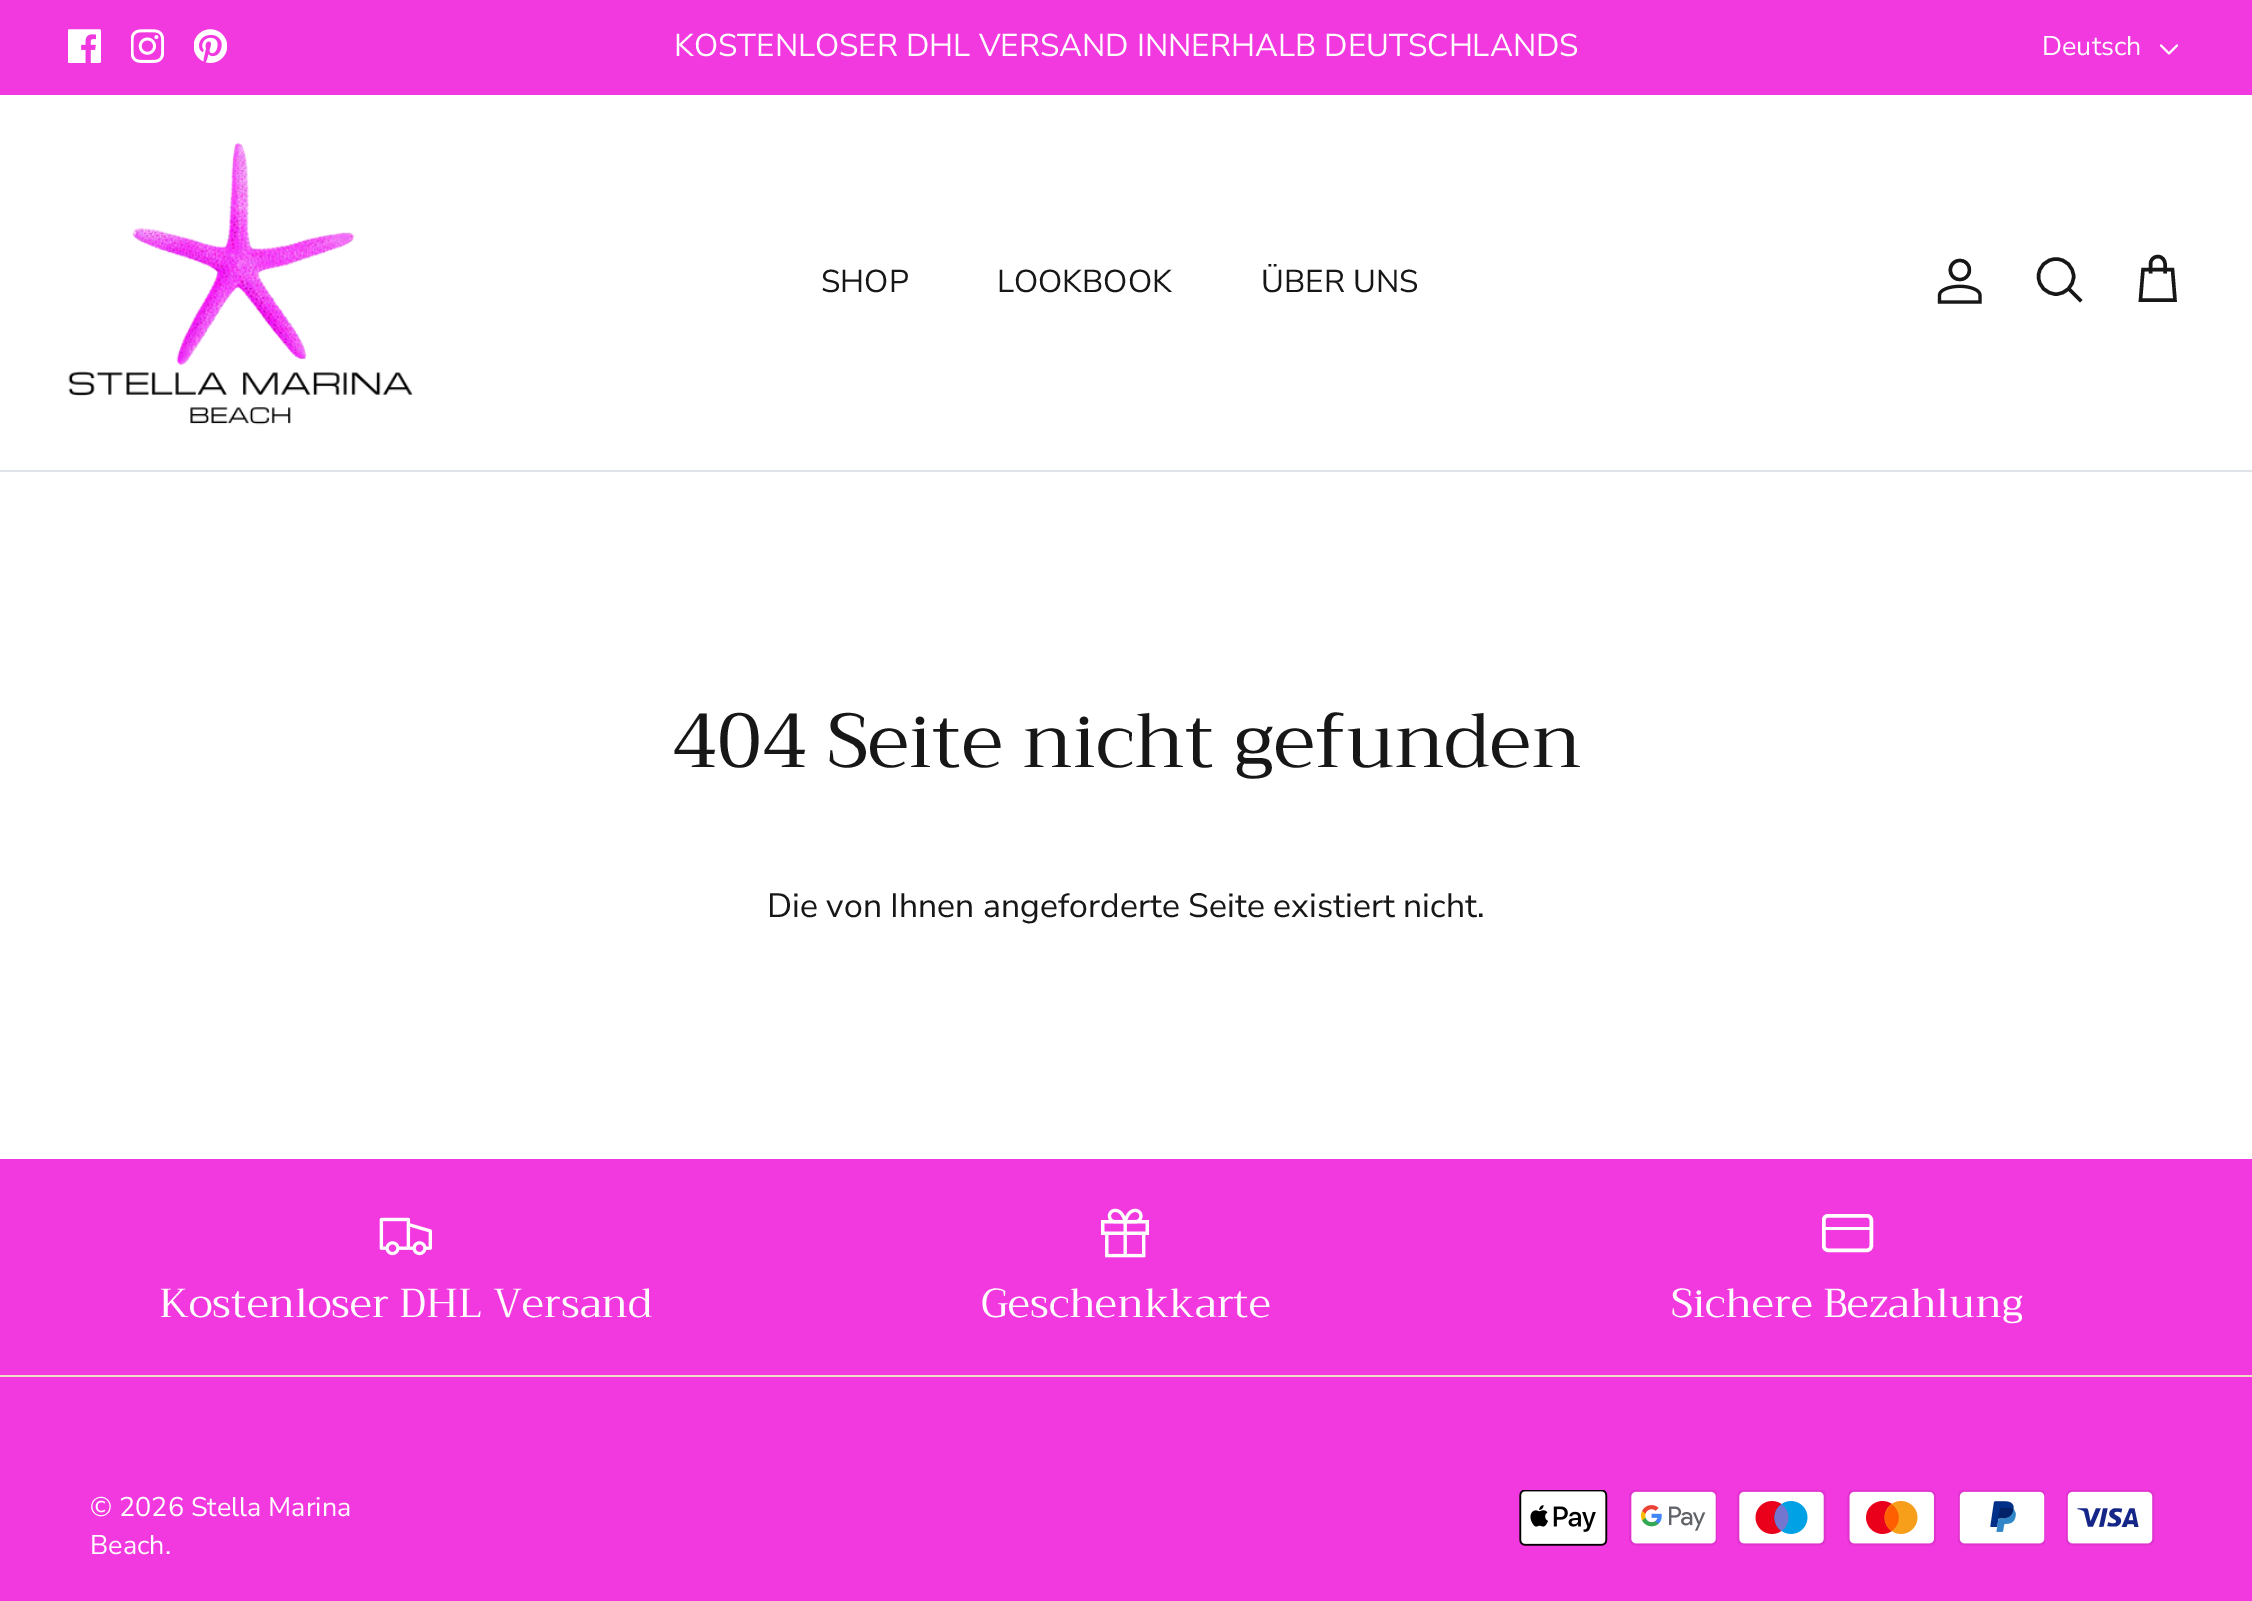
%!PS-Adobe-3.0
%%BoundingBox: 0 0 2252 1601
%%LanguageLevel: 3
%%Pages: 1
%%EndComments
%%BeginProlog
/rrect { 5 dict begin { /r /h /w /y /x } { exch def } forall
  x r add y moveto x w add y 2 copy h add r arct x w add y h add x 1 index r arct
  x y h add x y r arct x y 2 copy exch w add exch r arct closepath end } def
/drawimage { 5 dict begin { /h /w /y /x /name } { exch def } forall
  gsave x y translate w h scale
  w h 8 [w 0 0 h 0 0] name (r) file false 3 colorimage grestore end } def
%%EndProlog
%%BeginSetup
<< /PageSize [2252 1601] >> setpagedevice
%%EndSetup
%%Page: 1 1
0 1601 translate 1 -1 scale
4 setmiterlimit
1 setgray
0 0 2252 1601 rectfill
0.949 0.22 0.875 setrgbcolor
0 0 2252 95 rectfill
(images/1.raw) 68 29 33 34 drawimage
(images/2.raw) 131 29 33 34 drawimage
(images/3.raw) 194 29 33 34 drawimage
1 setgray
2 setlinewidth
1 setlinecap
1 setlinejoin
newpath 2161 45.5 moveto 2169 53.5 lineto 2177 45.5 lineto stroke
0.875 0.89 0.91 setrgbcolor
0 470 2252 2 rectfill
(images/4.raw) 68 142 345 283 drawimage
(images/5.raw) 1937 258 45 46 drawimage
0.09 setgray
3.4 setlinewidth
0 setlinecap
0 setlinejoin
newpath 2056 276.5 17.5 0 360 arc closepath stroke
2 setlinecap
newpath 2070 290 moveto 2080 300 lineto stroke
0 setlinecap
newpath 2165 273.5 moveto 2165 264 lineto 2165 260 2162 256.5 2158 256.5 curveto 2153.5 256.5 2150.5 260 2150.5 264 curveto 2150.5 273.5 lineto 2143 269.5 moveto 2172.5 269.5 lineto 2175 300 lineto 2140.5 300 lineto closepath stroke
0.949 0.22 0.875 setrgbcolor
0 1159 2252 442 rectfill
(images/6.raw) 379 1217 53 39 drawimage
(images/7.raw) 1101 1208 48 50 drawimage
1 setgray
3.5 setlinewidth
1823.75 1215.75 47.5 34.5 4.25 rrect stroke
1824 1227 48 3 rectfill
0.937 0.875 0.78 setrgbcolor
0 1375 2252 2 rectfill
(images/8.raw) 1519 1490 89 56 drawimage
(images/9.raw) 1629 1490 88 56 drawimage
(images/10.raw) 1737 1490 89 56 drawimage
(images/11.raw) 1847 1490 89 56 drawimage
(images/12.raw) 1958 1490 87 56 drawimage
(images/13.raw) 2066 1490 89 56 drawimage
/NunitoSans-Regular [31.5 0 0 -31.5 0 0] selectfont
1 setgray
674 56 moveto (KOSTENLOSER DHL VERSAND INNERHALB DEUTSCHLANDS) show
/NunitoSans-Regular [27 0 0 -27 0 0] selectfont
2042 55 moveto (Deutsch) show
/NunitoSans-Regular [31.5 0 0 -31.5 0 0] selectfont
0.09 setgray
821 292 moveto (SHOP) show
997 292 moveto (LOOKBOOK) show
1261 292 moveto (ÜBER UNS) show
/Trirong-Regular [76.5 0 0 -76.5 0 0] selectfont
672 767 moveto (404 Seite nicht gefunden) show
/NunitoSans-Regular [33.75 0 0 -33.75 0 0] selectfont
767 917 moveto (Die von Ihnen angeforderte Seite existiert nicht.) show
/Trirong-Regular [40.5 0 0 -40.5 0 0] selectfont
1 setgray
159 1317 moveto (Kostenloser DHL Versand) show
981 1317 moveto (Geschenkkarte) show
1671 1317 moveto (Sichere Bezahlung) show
/NunitoSans-Regular [27 0 0 -27 0 0] selectfont
90 1516 moveto (© 2026 Stella Marina) show
90 1554 moveto (Beach.) show
showpage
%%EOF
